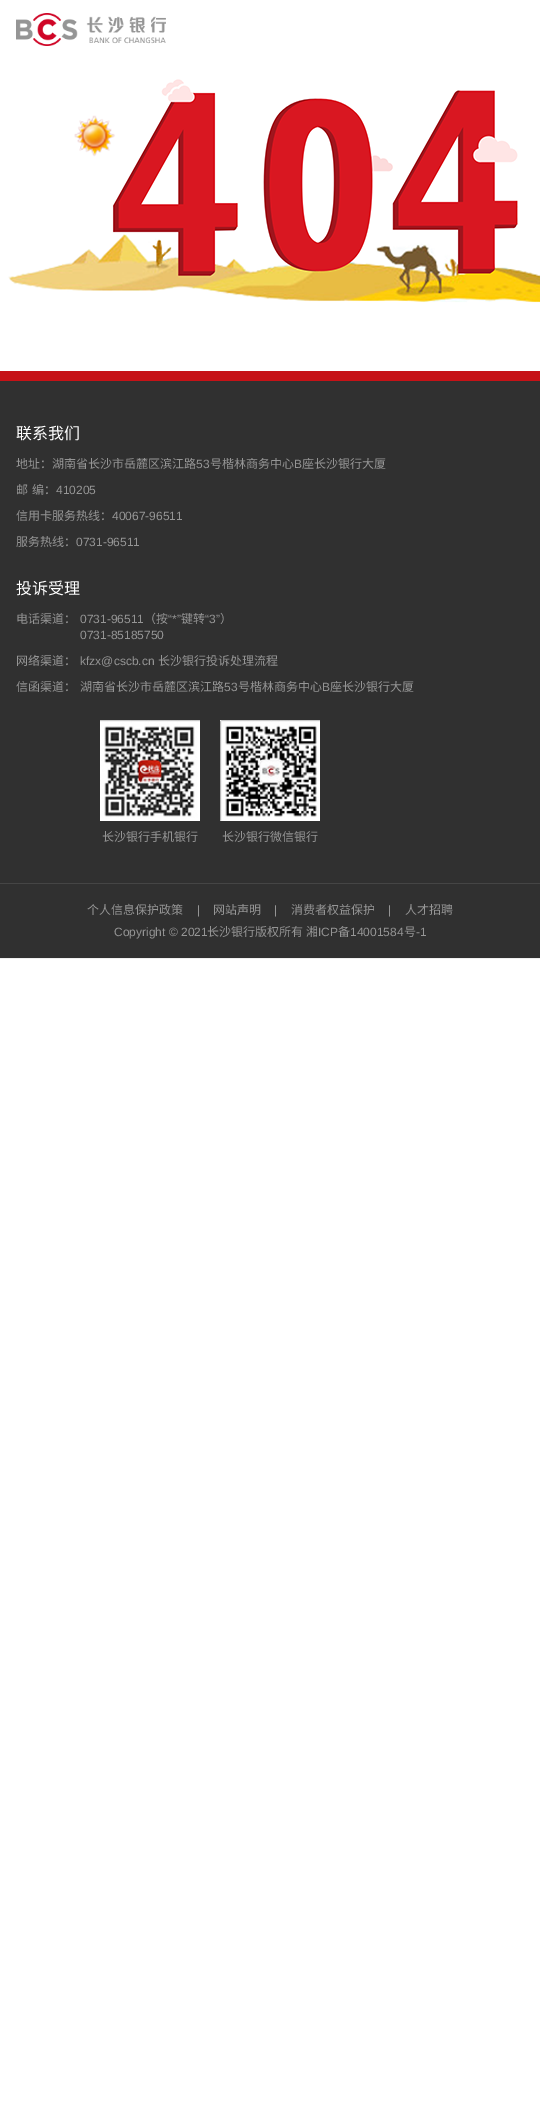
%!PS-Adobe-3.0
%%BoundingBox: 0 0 540 2102
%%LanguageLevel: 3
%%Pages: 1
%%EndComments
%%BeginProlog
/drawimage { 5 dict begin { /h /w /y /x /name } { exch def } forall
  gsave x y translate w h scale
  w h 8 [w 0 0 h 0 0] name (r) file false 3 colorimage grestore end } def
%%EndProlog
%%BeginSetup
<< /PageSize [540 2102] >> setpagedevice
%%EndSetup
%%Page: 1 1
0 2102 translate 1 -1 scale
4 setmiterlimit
1 setgray
0 0 540 2102 rectfill
0.933 setgray
0 958 540 1 rectfill
(images/1.raw) 16 13 150 33 drawimage
(images/2.raw) 8 79 532 224 drawimage
0.188 setgray
0 381 540 577 rectfill
0.776 0.071 0.09 setrgbcolor
0 371 540 10 rectfill
(images/3.raw) 100 720 100 101 drawimage
(images/4.raw) 220 720 100 101 drawimage
0.271 setgray
0 883 540 1 rectfill
/NotoSansCJKSC-Regular [16 0 0 -16 0 0] selectfont
1 setgray
16 439 moveto (联系我们) show
/NotoSansCJKSC-Regular [12 0 0 -12 0 0] selectfont
0.584 setgray
16 468 moveto (地址：湖南省长沙市岳麓区滨江路) show
/LiberationSans-Regular [12 0 0 -12 0 0] selectfont
196 468 moveto (53) show
/NotoSansCJKSC-Regular [12 0 0 -12 0 0] selectfont
210 468 moveto (号楷林商务中心) show
/LiberationSans-Regular [12 0 0 -12 0 0] selectfont
294 468 moveto (B) show
/NotoSansCJKSC-Regular [12 0 0 -12 0 0] selectfont
302 468 moveto (座长沙银行大厦) show
16 494 moveto 1 0 32 (邮 编：) widthshow
/LiberationSans-Regular [12 0 0 -12 0 0] selectfont
56 494 moveto (410205) show
/NotoSansCJKSC-Regular [12 0 0 -12 0 0] selectfont
16 520 moveto (信用卡服务热线：) show
/LiberationSans-Regular [12 0 0 -12 0 0] selectfont
112 520 moveto (40067-96511) show
/NotoSansCJKSC-Regular [12 0 0 -12 0 0] selectfont
16 546 moveto (服务热线：) show
/LiberationSans-Regular [12 0 0 -12 0 0] selectfont
76 546 moveto (0731-96511) show
/NotoSansCJKSC-Regular [16 0 0 -16 0 0] selectfont
1 setgray
16 594 moveto (投诉受理) show
/NotoSansCJKSC-Regular [12 0 0 -12 0 0] selectfont
0.584 setgray
16 623 moveto (电话渠道：) show
/LiberationSans-Regular [12 0 0 -12 0 0] selectfont
80 623 moveto (0731-96511) show
/NotoSansCJKSC-Regular [12 0 0 -12 0 0] selectfont
144 623 moveto (（按) show
/LiberationSans-Regular [12 0 0 -12 0 0] selectfont
168 623 moveto (“*”) show
/NotoSansCJKSC-Regular [12 0 0 -12 0 0] selectfont
181 623 moveto (键转) show
/LiberationSans-Regular [12 0 0 -12 0 0] selectfont
205 623 moveto (“3”) show
/NotoSansCJKSC-Regular [12 0 0 -12 0 0] selectfont
220 623 moveto (）) show
/LiberationSans-Regular [12 0 0 -12 0 0] selectfont
80 639 moveto (0731-85185750) show
/NotoSansCJKSC-Regular [12 0 0 -12 0 0] selectfont
16 665 moveto (网络渠道：) show
/LiberationSans-Regular [12 0 0 -12 0 0] selectfont
80 665 moveto (kfzx@cscb.cn) show
/NotoSansCJKSC-Regular [12 0 0 -12 0 0] selectfont
158 665 moveto (长沙银行投诉处理流程) show
16 691 moveto (信函渠道：) show
80 691 moveto (湖南省长沙市岳麓区滨江路) show
/LiberationSans-Regular [12 0 0 -12 0 0] selectfont
224 691 moveto (53) show
/NotoSansCJKSC-Regular [12 0 0 -12 0 0] selectfont
238 691 moveto (号楷林商务中心) show
/LiberationSans-Regular [12 0 0 -12 0 0] selectfont
322 691 moveto (B) show
/NotoSansCJKSC-Regular [12 0 0 -12 0 0] selectfont
330 691 moveto (座长沙银行大厦) show
102 841 moveto (长沙银行手机银行) show
222 841 moveto (长沙银行微信银行) show
87 914 moveto (个人信息保护政策) show
/LiberationSans-Regular [12 0 0 -12 0 0] selectfont
197 914 moveto (|) show
/NotoSansCJKSC-Regular [12 0 0 -12 0 0] selectfont
213 914 moveto (网站声明) show
/LiberationSans-Regular [12 0 0 -12 0 0] selectfont
274 914 moveto (|) show
/NotoSansCJKSC-Regular [12 0 0 -12 0 0] selectfont
291 914 moveto (消费者权益保护) show
/LiberationSans-Regular [12 0 0 -12 0 0] selectfont
388 914 moveto (|) show
/NotoSansCJKSC-Regular [12 0 0 -12 0 0] selectfont
405 914 moveto (人才招聘) show
/LiberationSans-Regular [12 0 0 -12 0 0] selectfont
114 936 moveto (Copyright © 2021) show
/NotoSansCJKSC-Regular [12 0 0 -12 0 0] selectfont
207 936 moveto (长沙银行版权所有) show
306 936 moveto (湘) show
/LiberationSans-Regular [12 0 0 -12 0 0] selectfont
318 936 moveto (ICP) show
/NotoSansCJKSC-Regular [12 0 0 -12 0 0] selectfont
338 936 moveto (备) show
/LiberationSans-Regular [12 0 0 -12 0 0] selectfont
350 936 moveto (14001584) show
/NotoSansCJKSC-Regular [12 0 0 -12 0 0] selectfont
404 936 moveto (号) show
/LiberationSans-Regular [12 0 0 -12 0 0] selectfont
416 936 moveto (-1) show
showpage
%%EOF
